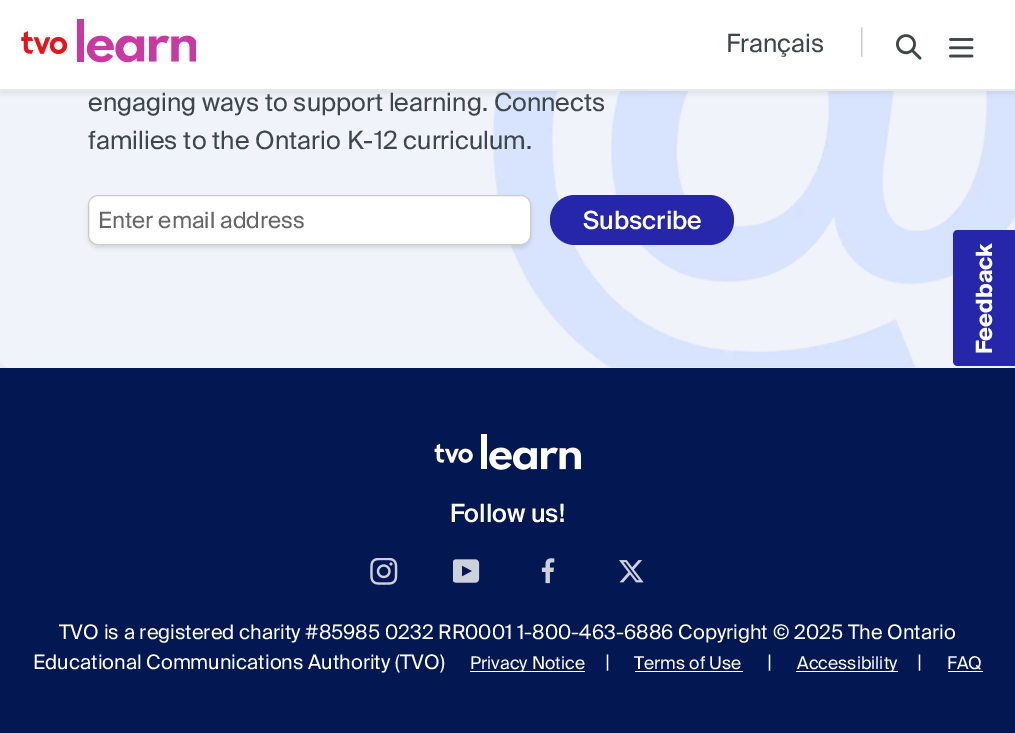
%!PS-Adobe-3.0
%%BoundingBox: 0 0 1015 733
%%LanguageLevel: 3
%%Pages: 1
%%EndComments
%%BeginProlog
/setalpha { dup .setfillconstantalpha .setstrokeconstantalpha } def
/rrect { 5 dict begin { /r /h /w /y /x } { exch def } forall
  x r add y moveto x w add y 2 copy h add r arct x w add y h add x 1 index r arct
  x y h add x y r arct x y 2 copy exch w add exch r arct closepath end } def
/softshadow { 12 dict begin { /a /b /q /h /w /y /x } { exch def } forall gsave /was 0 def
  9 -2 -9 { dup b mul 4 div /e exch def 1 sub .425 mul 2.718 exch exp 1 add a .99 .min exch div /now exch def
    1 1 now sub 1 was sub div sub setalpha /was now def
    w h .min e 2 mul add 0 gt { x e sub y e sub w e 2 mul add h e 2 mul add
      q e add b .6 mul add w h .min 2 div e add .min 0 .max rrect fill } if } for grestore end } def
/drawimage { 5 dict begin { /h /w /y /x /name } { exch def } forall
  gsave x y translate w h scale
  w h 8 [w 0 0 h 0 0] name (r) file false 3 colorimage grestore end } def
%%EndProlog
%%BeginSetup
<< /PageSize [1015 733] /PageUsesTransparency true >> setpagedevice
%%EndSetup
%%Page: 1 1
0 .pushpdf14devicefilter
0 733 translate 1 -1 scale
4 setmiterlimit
1 setgray
0 0 1015 733 rectfill
0.859 setgray
0 -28 1015 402 10 6 1 softshadow
0.941 0.953 0.98 setrgbcolor
0 -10 1015 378 10 rrect fill
(images/4.raw) 492 91 523 277 drawimage
0 setgray
1 1 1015 92 0 3 0.08 softshadow
1 setgray
0 0 1015 89 rectfill
0.91 0.914 0.922 setrgbcolor
0 89 1015 2 rectfill
(images/1.raw) 21 19 175 44 drawimage
0.8 setgray
newpath 862.5 27.5 moveto 862.5 57.5 lineto 861 56 lineto 861 27.5 lineto closepath fill
(images/2.raw) 896 34 26 26 drawimage
(images/3.raw) 949 38 25 20 drawimage
0 setgray
88 198 443 50 10 2 0.1 softshadow
1 setgray
88.5 195.5 442 49 9.5 rrect gsave fill grestore
0.8 setgray
stroke
0.145 0.149 0.663 setrgbcolor
550 195 184 50 25 rrect fill
0.012 0.09 0.322 setrgbcolor
0 368 1015 365 rectfill
(images/5.raw) 434 434 147 36 drawimage
(images/6.raw) 370 558 28 27 drawimage
(images/7.raw) 453 559 27 24 drawimage
(images/8.raw) 541 558 14 26 drawimage
(images/9.raw) 619 560 25 23 drawimage
1 setgray
470 671 115 1 rectfill
635 671 108 1 rectfill
796 671 102 1 rectfill
948 671 35 1 rectfill
0.145 0.149 0.663 setrgbcolor
newpath 958 230 moveto 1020 230 lineto 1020 366 lineto 958 366 lineto 955 366 953 364 953 361 curveto 953 235 lineto 953 232 955 230 958 230 curveto closepath fill
/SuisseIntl-Regular [25 0 0 -25 0 0] selectfont
0.239 0.275 0.286 setrgbcolor
726 52 moveto (Français) show
88 111 moveto (engaging ways to support learning. Connects) show
88 149 moveto (families to the Ontario K-12 curriculum.) show
/SuisseIntl-Regular [22.5 0 0 -22.5 0 0] selectfont
0.4 setgray
98 228 moveto (Enter email address) show
/SuisseIntl-Medium [25 0 0 -25 0 0] selectfont
1 setgray
583 229 moveto (Subscribe) show
450 522 moveto (Follow us!) show
/SuisseIntl-Regular [20 0 0 -20 0 0] selectfont
59 639 moveto (TVO is a registered charity #85985 0232 RR0001 1-800-463-6886 Copyright © 2025 The Ontario) show
33 669 moveto (Educational Communications Authority \(TVO\)) show
/SuisseIntl-Regular [17.5 0 0 -17.5 0 0] selectfont
470 669 moveto (Privacy Notice) show
/SuisseIntl-Regular [20 0 0 -20 0 0] selectfont
605 669 moveto (|) show
/SuisseIntl-Regular [17.5 0 0 -17.5 0 0] selectfont
634 669 moveto (Terms of Use) show
/SuisseIntl-Regular [20 0 0 -20 0 0] selectfont
767 669 moveto (|) show
/SuisseIntl-Regular [17.5 0 0 -17.5 0 0] selectfont
797 669 moveto (Accessibility) show
/SuisseIntl-Regular [20 0 0 -20 0 0] selectfont
917 669 moveto (|) show
/SuisseIntl-Regular [17.5 0 0 -17.5 0 0] selectfont
947 669 moveto (FAQ) show
/SuisseIntl-Bold [22.5 0 0 -22.5 0 0] selectfont
gsave 992 354 translate -90 rotate 0 0 moveto (Feedback) show grestore
.poppdf14devicefilter showpage
%%EOF
